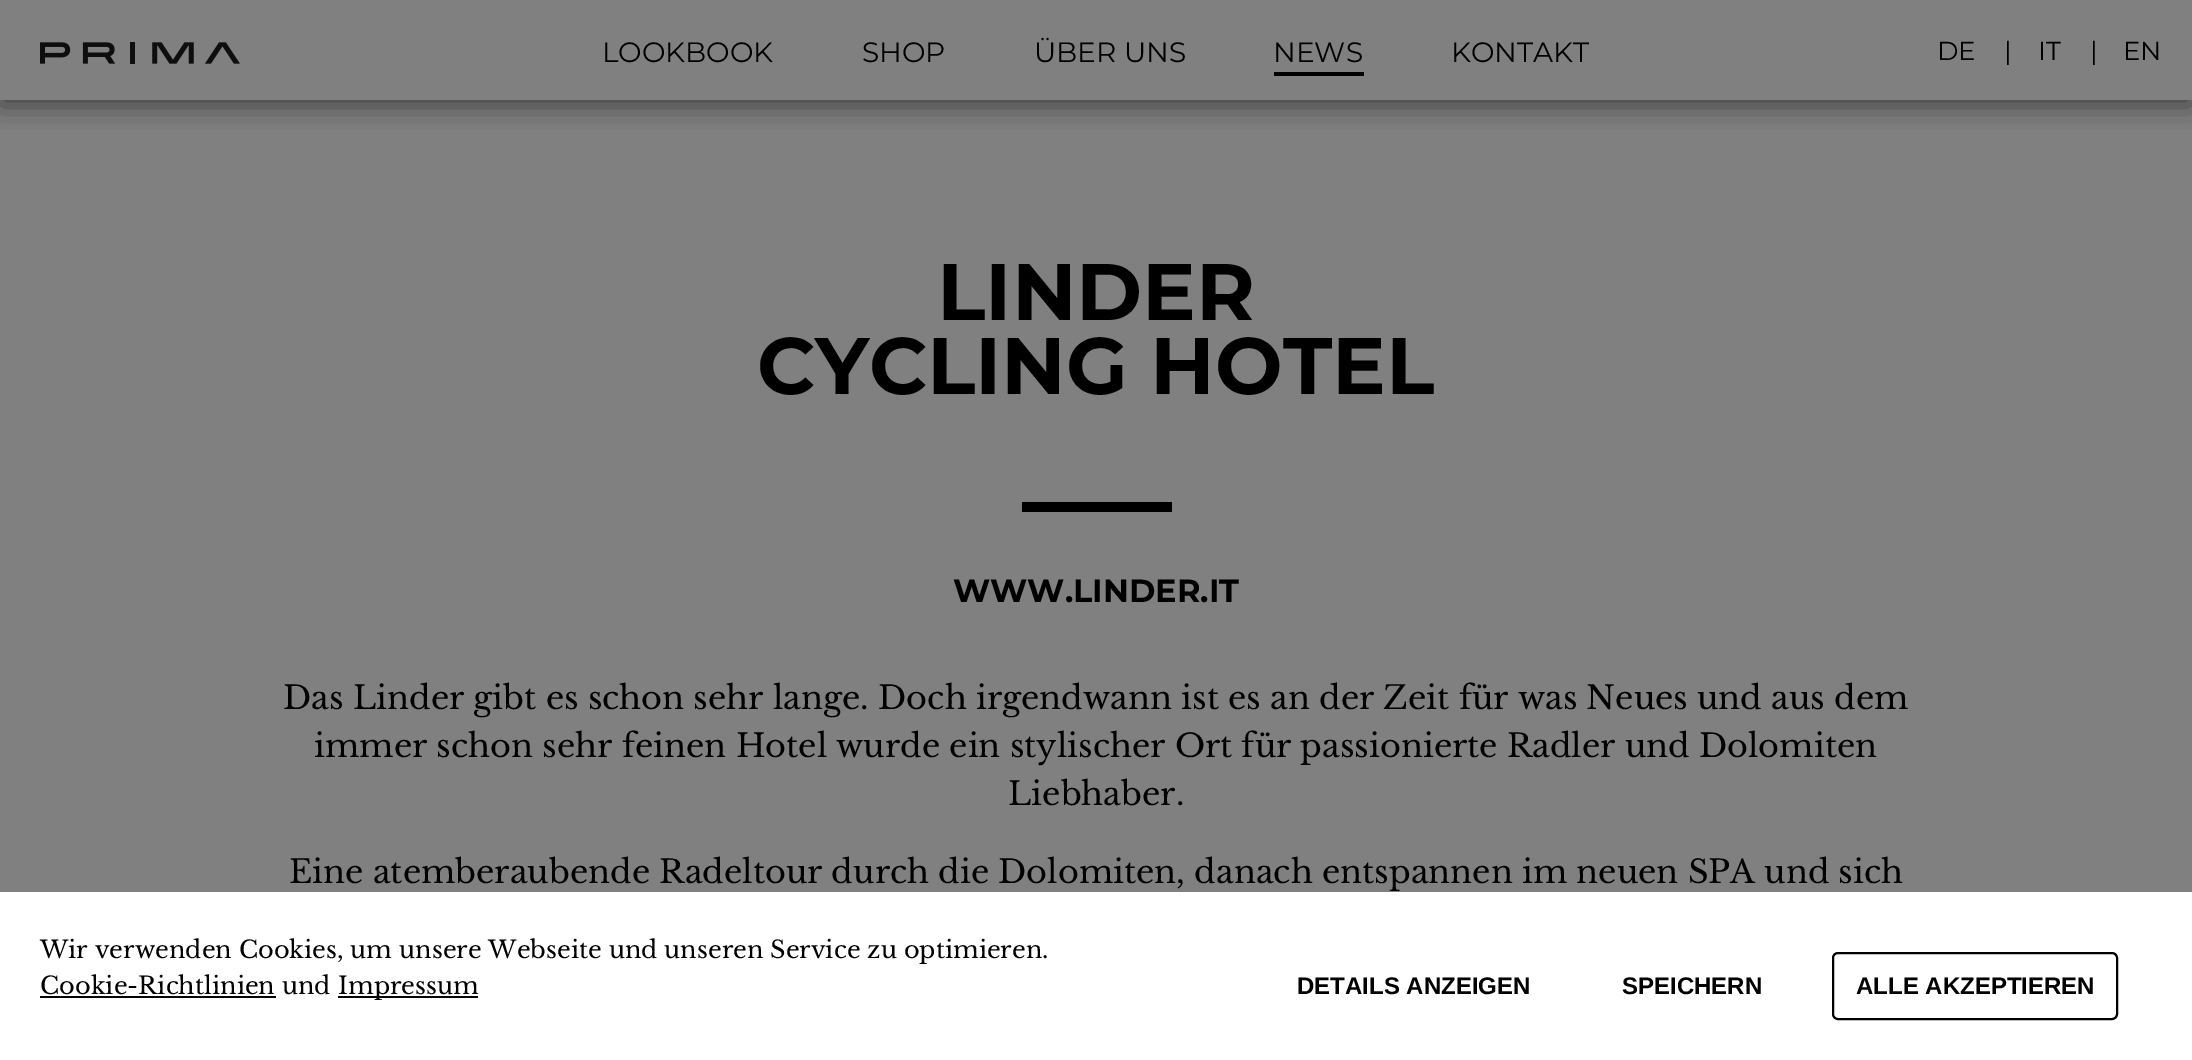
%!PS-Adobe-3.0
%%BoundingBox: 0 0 2192 1060
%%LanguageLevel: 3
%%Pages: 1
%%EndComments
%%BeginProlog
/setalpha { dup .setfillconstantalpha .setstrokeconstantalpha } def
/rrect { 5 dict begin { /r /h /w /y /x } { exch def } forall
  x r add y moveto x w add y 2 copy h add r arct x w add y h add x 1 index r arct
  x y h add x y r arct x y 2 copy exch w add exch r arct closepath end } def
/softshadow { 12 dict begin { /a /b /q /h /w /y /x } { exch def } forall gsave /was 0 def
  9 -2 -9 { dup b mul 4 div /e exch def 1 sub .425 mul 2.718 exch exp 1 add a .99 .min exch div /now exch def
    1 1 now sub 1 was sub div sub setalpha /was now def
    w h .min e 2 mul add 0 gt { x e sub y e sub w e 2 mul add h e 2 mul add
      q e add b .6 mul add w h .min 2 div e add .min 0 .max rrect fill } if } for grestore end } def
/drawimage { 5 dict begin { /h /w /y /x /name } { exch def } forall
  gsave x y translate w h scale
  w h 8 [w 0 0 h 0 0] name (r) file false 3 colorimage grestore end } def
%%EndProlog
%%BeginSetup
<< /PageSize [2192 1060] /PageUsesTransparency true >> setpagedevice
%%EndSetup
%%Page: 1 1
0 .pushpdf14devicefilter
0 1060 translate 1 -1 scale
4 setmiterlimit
0.502 setgray
0 0 2192 1060 rectfill
gsave
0 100 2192 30 rectclip
0 setgray
0 6 2192 100 0 14 0.5 softshadow
grestore
(images/1.raw) 40 42 200 22 drawimage
0 setgray
1274 72 90 4 rectfill
1022 502 150 10 rectfill
1 setgray
0 892 2192 168 rectfill
0 setgray
40 996 236 2 rectfill
338 996 140 2 rectfill
2 setlinewidth
1833 953 284 66 5 rrect stroke
/Montserrat-Regular [28 0 0 -28 0 0] selectfont
602 62 moveto (LOOKBOOK) show
862 62 moveto (SHOP) show
1034 62 moveto (ÜBER UNS) show
1273 62 moveto (NEWS) show
1451 62 moveto (KONTAKT) show
/Montserrat-Regular [26 0 0 -26 0 0] selectfont
1937 60 moveto (DE) show
2004 60 moveto (|) show
2038 60 moveto (IT) show
2090 60 moveto (|) show
2123 60 moveto (EN) show
/Montserrat-Bold [80 0 0 -80 0 0] selectfont
937 320 moveto (LINDER) show
757 394 moveto (CYCLING HOTEL) show
/Montserrat-Bold [32 0 0 -32 0 0] selectfont
953 602 moveto (WWW.LINDER.IT) show
/LibreBaskerville-Regular [32 0 0 -32 0 0] selectfont
283 709 moveto (Das Linder gibt es schon sehr lange. Doch irgendwann ist es an der Zeit für was Neues und aus dem) show
314 757 moveto (immer schon sehr feinen Hotel wurde ein stylischer Ort für passionierte Radler und Dolomiten) show
1008 805 moveto (Liebhaber.) show
289 883 moveto (Eine atemberaubende Radeltour durch die Dolomiten, danach entspannen im neuen SPA und sich) show
/LibreBaskerville-Regular [24 0 0 -24 0 0] selectfont
40 958 moveto (Wir verwenden Cookies, um unsere Webseite und unseren Service zu optimieren.) show
40 994 moveto (Cookie-Richtlinien und) show
338 994 moveto (Impressum) show
/LiberationSans-Bold [24 0 0 -24 0 0] selectfont
1297 994 moveto (DETAILS ANZEIGEN) show
1622 994 moveto (SPEICHERN) show
1856 994 moveto (ALLE AKZEPTIEREN) show
.poppdf14devicefilter showpage
%%EOF
